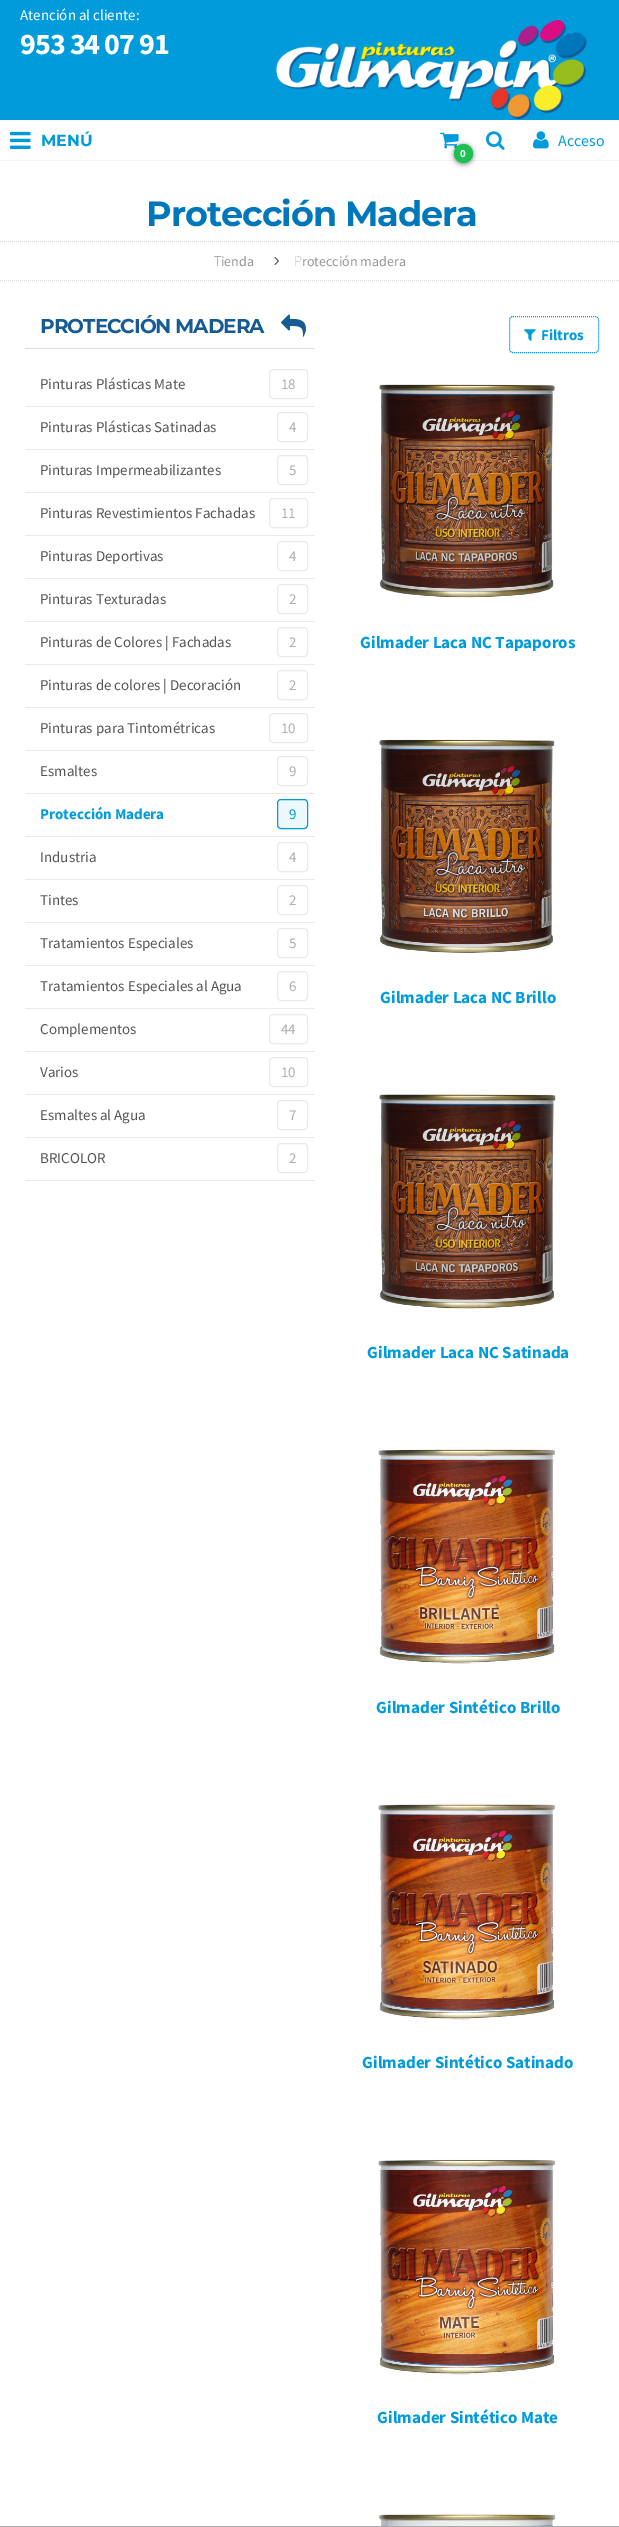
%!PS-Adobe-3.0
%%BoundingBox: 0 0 619 2527
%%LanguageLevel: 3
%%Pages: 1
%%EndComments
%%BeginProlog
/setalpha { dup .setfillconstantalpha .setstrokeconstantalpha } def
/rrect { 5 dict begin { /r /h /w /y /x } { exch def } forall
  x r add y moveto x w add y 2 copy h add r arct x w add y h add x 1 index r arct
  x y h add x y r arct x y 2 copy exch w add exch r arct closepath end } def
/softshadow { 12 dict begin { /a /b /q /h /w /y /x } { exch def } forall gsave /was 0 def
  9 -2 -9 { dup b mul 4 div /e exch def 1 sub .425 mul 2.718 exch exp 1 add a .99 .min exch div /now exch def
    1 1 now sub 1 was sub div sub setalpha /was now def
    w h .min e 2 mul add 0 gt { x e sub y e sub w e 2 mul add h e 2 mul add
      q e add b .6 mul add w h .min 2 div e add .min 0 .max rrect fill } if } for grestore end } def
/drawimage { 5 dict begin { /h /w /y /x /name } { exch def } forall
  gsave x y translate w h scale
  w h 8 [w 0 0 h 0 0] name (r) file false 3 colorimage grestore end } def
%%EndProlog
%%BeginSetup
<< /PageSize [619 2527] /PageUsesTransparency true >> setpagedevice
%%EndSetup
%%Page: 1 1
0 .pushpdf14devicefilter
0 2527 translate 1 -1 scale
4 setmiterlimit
1 setgray
0 0 619 2527 rectfill
0 0.608 0.859 setrgbcolor
0 0 619 120 rectfill
(images/1.raw) 276 20 311 99 drawimage
0.957 setgray
0 160 619 1 rectfill
(images/2.raw) 10 131 21 18 drawimage
(images/3.raw) 486 131 19 19 drawimage
(images/4.raw) 533 131 16 18 drawimage
(images/5.raw) 440 132 19 17 drawimage
0 setgray
454 145 19 19 9.5 2.5 0.5 softshadow
0.102 0.761 0.322 setrgbcolor
newpath 463.5 153.5 9.5 0 360 arc closepath fill
0.867 setgray
[1 1] 0 setdash
newpath 0 241.5 moveto 619 241.5 lineto stroke
newpath 0 280.5 moveto 619 280.5 lineto stroke
0.341 0.341 0.337 setrgbcolor
newpath 275 257 moveto 280 262 280 260 275 265 curveto 274.5 264.5 lineto 278.5 260 278.5 262 274.5 257.5 curveto closepath fill
0.867 setgray
25 348 290 1 rectfill
(images/6.raw) 281 314 25 23 drawimage
0.918 setgray
25 406 290 1 rectfill
[] 0 setdash
269.5 369.5 38 29 3.5 rrect stroke
25 449 290 1 rectfill
277.5 412.5 30 29 3.5 rrect stroke
25 492 290 1 rectfill
277.5 455.5 30 29 3.5 rrect stroke
25 535 290 1 rectfill
269.5 498.5 38 29 3.5 rrect stroke
25 578 290 1 rectfill
277.5 541.5 30 29 3.5 rrect stroke
25 621 290 1 rectfill
277.5 584.5 30 29 3.5 rrect stroke
25 664 290 1 rectfill
277.5 627.5 30 29 3.5 rrect stroke
25 707 290 1 rectfill
277.5 670.5 30 29 3.5 rrect stroke
25 750 290 1 rectfill
269.5 713.5 38 29 3.5 rrect stroke
25 793 290 1 rectfill
277.5 756.5 30 29 3.5 rrect stroke
25 836 290 1 rectfill
0.929 0.973 0.988 setrgbcolor
277.5 799.5 30 29 3.5 rrect gsave fill grestore
0 0.608 0.859 setrgbcolor
stroke
0.918 setgray
25 879 290 1 rectfill
277.5 842.5 30 29 3.5 rrect stroke
25 922 290 1 rectfill
277.5 885.5 30 29 3.5 rrect stroke
25 965 290 1 rectfill
277.5 928.5 30 29 3.5 rrect stroke
25 1008 290 1 rectfill
277.5 971.5 30 29 3.5 rrect stroke
25 1051 290 1 rectfill
269.5 1014.5 38 29 3.5 rrect stroke
25 1094 290 1 rectfill
269.5 1057.5 38 29 3.5 rrect stroke
25 1137 290 1 rectfill
277.5 1100.5 30 29 3.5 rrect stroke
25 1180 290 1 rectfill
277.5 1143.5 30 29 3.5 rrect stroke
0 0.608 0.859 setrgbcolor
[1 1] 0 setdash
newpath 513 316.5 moveto 595 316.5 lineto 597 316.5 598.5 318 598.5 320 curveto 598.5 349 lineto 598.5 351 597 352.5 595 352.5 curveto 513 352.5 lineto 511 352.5 509.5 351 509.5 349 curveto 509.5 320 lineto 509.5 318 511 316.5 513 316.5 curveto closepath stroke
(images/7.raw) 524 329 12 12 drawimage
(images/8.raw) 379 384 176 214 drawimage
(images/9.raw) 379 739 176 215 drawimage
(images/10.raw) 379 1094 177 215 drawimage
(images/11.raw) 378 1449 177 223 drawimage
(images/12.raw) 378 1804 177 224 drawimage
(images/13.raw) 378 2159 177 224 drawimage
(images/14.raw) 379 2514 177 12 drawimage
0.667 setgray
0 2526 619 1 rectfill
/SourceSansPro-Regular [15 0 0 -15 0 0] selectfont
1 setgray
20 20 moveto (Atención al cliente:) show
/SourceSansPro-Bold [30 0 0 -30 0 0] selectfont
20 54 moveto -1 0 (953 34 07 91) ashow
/Montserrat-Bold [16 0 0 -16 0 0] selectfont
0 0.608 0.859 setrgbcolor
41 146 moveto (MENÚ) show
/SourceSansPro-Regular [16 0 0 -16 0 0] selectfont
558 146 moveto (Acceso) show
/SourceSansPro-Bold [11 0 0 -11 0 0] selectfont
1 setgray
460 157 moveto (0) show
/Montserrat-Bold [35 0 0 -35 0 0] selectfont
0 0.463 0.733 setrgbcolor
146 226 moveto -1 0 (Protección Madera) ashow
/NotoSans-Light [14 0 0 -14 0 0] selectfont
0.573 0.58 0.592 setrgbcolor
214 266 moveto (T) show
/SourceSansPro-Regular [14 0 0 -14 0 0] selectfont
221 266 moveto (ienda) show
/NotoSans-Thin [14 0 0 -14 0 0] selectfont
294 266 moveto (P) show
/SourceSansPro-Regular [14 0 0 -14 0 0] selectfont
302 266 moveto (rotección madera) show
/Montserrat-Bold [20 0 0 -20 0 0] selectfont
0.086 0.357 0.58 setrgbcolor
40 333 moveto -1 0 (PROTECCIÓN MADERA) ashow
/SourceSansPro-Regular [15 0 0 -15 0 0] selectfont
0.333 setgray
40 389 moveto (Pinturas Plásticas Mate) show
0.678 setgray
281 389 moveto (18) show
0.333 setgray
40 432 moveto (Pinturas Plásticas Satinadas) show
0.678 setgray
289 432 moveto (4) show
0.333 setgray
40 475 moveto (Pinturas Impermeabilizantes) show
0.678 setgray
289 475 moveto (5) show
0.333 setgray
40 518 moveto (Pinturas Revestimientos Fachadas) show
0.678 setgray
281 518 moveto (11) show
0.333 setgray
40 561 moveto (Pinturas Deportivas) show
0.678 setgray
289 561 moveto (4) show
0.333 setgray
40 604 moveto (Pinturas Texturadas) show
0.678 setgray
289 604 moveto (2) show
0.333 setgray
40 647 moveto (Pinturas de Colores | Fachadas) show
0.678 setgray
289 647 moveto (2) show
0.333 setgray
40 690 moveto (Pinturas de colores | Decoración) show
0.678 setgray
289 690 moveto (2) show
0.333 setgray
40 733 moveto (Pinturas para Tintométricas) show
0.678 setgray
281 733 moveto (10) show
0.333 setgray
40 776 moveto (Esmaltes) show
0.678 setgray
289 776 moveto (9) show
/SourceSansPro-Bold [15 0 0 -15 0 0] selectfont
0 0.608 0.859 setrgbcolor
40 819 moveto (Protección Madera) show
/SourceSansPro-Regular [15 0 0 -15 0 0] selectfont
289 819 moveto (9) show
0.333 setgray
40 862 moveto (Industria) show
0.678 setgray
289 862 moveto (4) show
0.333 setgray
40 905 moveto (Tintes) show
0.678 setgray
289 905 moveto (2) show
0.333 setgray
40 948 moveto (Tratamientos Especiales) show
0.678 setgray
289 948 moveto (5) show
0.333 setgray
40 991 moveto (Tratamientos Especiales al Agua) show
0.678 setgray
289 991 moveto (6) show
0.333 setgray
40 1034 moveto (Complementos) show
0.678 setgray
281 1034 moveto (44) show
0.333 setgray
40 1077 moveto (Varios) show
0.678 setgray
281 1077 moveto (10) show
0.333 setgray
40 1120 moveto (Esmaltes al Agua) show
0.678 setgray
289 1120 moveto (7) show
0.333 setgray
40 1163 moveto (BRICOLOR) show
0.678 setgray
289 1163 moveto (2) show
/SourceSansPro-Bold [15 0 0 -15 0 0] selectfont
0 0.608 0.859 setrgbcolor
541 340 moveto (Filtros) show
/SourceSansPro-Bold [17 0 0 -17 0 0] selectfont
360 648 moveto (Gilmader Laca NC Tapaporos) show
380 1003 moveto (Gilmader Laca NC Brillo) show
367 1358 moveto (Gilmader Laca NC Satinada) show
376 1713 moveto (Gilmader Sintético Brillo) show
362 2068 moveto (Gilmader Sintético Satinado) show
377 2423 moveto (Gilmader Sintético Mate) show
.poppdf14devicefilter showpage
%%EOF
